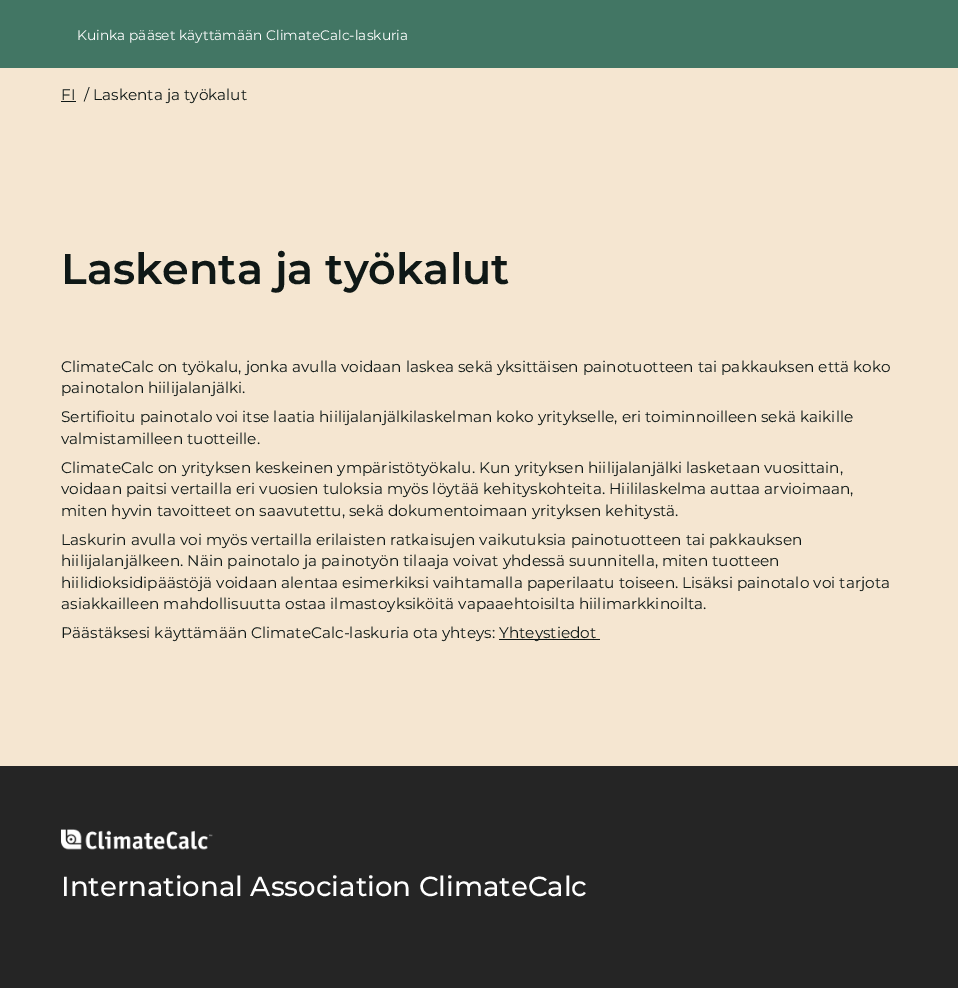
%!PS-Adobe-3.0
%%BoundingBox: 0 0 958 988
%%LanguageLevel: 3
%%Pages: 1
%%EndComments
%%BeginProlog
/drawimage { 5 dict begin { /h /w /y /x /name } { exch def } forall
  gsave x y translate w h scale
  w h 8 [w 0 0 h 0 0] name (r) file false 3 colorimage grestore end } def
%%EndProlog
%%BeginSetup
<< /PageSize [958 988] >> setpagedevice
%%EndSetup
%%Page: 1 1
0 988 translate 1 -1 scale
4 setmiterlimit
0.961 0.902 0.82 setrgbcolor
0 0 958 988 rectfill
0.259 0.463 0.392 setrgbcolor
0 0 958 68 rectfill
0.059 0.094 0.086 setrgbcolor
61 101 15 1 rectfill
499 639 101 1 rectfill
0.145 setgray
0 766 958 222 rectfill
(images/1.raw) 61 829 152 21 drawimage
/Montserrat-Regular [13.8 0 0 -13.8 0 0] selectfont
1 setgray
77 40 moveto (Kuinka pääset käyttämään ClimateCalc-laskuria) show
/Montserrat-Regular [15.33 0 0 -15.33 0 0] selectfont
0.059 0.094 0.086 setrgbcolor
61 100 moveto (FI) show
84 100 moveto (/ Laskenta ja työkalut) show
/Montserrat-SemiBold [43 0 0 -43 0 0] selectfont
61 284 moveto (Laskenta ja työkalut) show
/Montserrat-Regular [15.33 0 0 -15.33 0 0] selectfont
61 372 moveto (ClimateCalc on työkalu, jonka avulla voidaan laskea sekä yksittäisen painotuotteen tai pakkauksen että koko) show
61 393 moveto (painotalon hiilijalanjälki.) show
61 422 moveto (Sertifioitu painotalo voi itse laatia hiilijalanjälkilaskelman koko yritykselle, eri toiminnoilleen sekä kaikille) show
61 444 moveto (valmistamilleen tuotteille.) show
61 473 moveto (ClimateCalc on yrityksen keskeinen ympäristötyökalu. Kun yrityksen hiilijalanjälki lasketaan vuosittain,) show
61 494 moveto (voidaan paitsi vertailla eri vuosien tuloksia myös löytää kehityskohteita. Hiililaskelma auttaa arvioimaan,) show
61 516 moveto (miten hyvin tavoitteet on saavutettu, sekä dokumentoimaan yrityksen kehitystä.) show
61 545 moveto (Laskurin avulla voi myös vertailla erilaisten ratkaisujen vaikutuksia painotuotteen tai pakkauksen) show
61 566 moveto (hiilijalanjälkeen. Näin painotalo ja painotyön tilaaja voivat yhdessä suunnitella, miten tuotteen) show
61 588 moveto (hiilidioksidipäästöjä voidaan alentaa esimerkiksi vaihtamalla paperilaatu toiseen. Lisäksi painotalo voi tarjota) show
61 609 moveto (asiakkailleen mahdollisuutta ostaa ilmastoyksiköitä vapaaehtoisilta hiilimarkkinoilta.) show
61 638 moveto (Päästäksesi käyttämään ClimateCalc-laskuria ota yhteys:) show
499 638 moveto (Yhteystiedot) show
/Montserrat-Medium [27.6 0 0 -27.6 0 0] selectfont
1 setgray
61 896 moveto (International Association ClimateCalc) show
showpage
%%EOF
